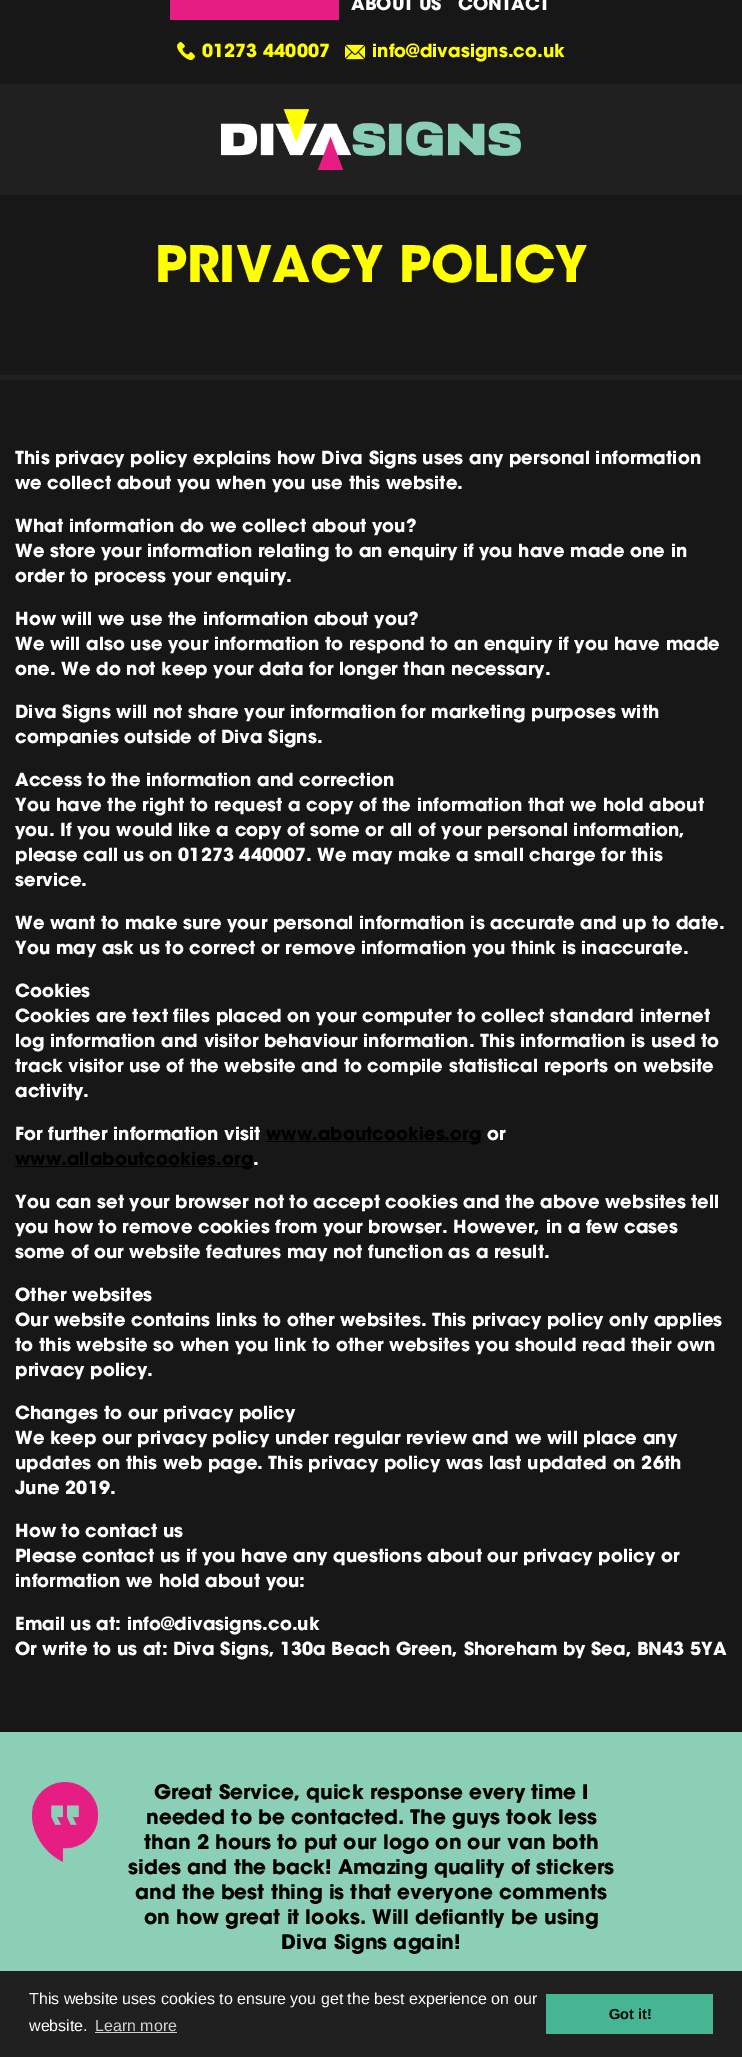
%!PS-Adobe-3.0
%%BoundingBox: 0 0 742 2057
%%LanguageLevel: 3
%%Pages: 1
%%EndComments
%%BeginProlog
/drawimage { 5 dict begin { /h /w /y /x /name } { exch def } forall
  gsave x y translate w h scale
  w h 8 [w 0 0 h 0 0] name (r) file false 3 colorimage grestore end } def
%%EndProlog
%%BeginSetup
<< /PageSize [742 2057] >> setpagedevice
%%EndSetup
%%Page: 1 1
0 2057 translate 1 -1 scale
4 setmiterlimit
0.09 setgray
0 0 742 2057 rectfill
0.902 0.114 0.514 setrgbcolor
170 0 169 20 rectfill
(images/1.raw) 177 42 18 18 drawimage
(images/2.raw) 345 44 20 16 drawimage
0.125 setgray
0 84 742 111 rectfill
(images/3.raw) 221 109 300 61 drawimage
0 375 742 5 rectfill
0 setgray
266 1141 215 1 rectfill
15 1166 238 1 rectfill
0.545 0.812 0.718 setrgbcolor
0 1732 742 239 rectfill
(images/4.raw) 31 1782 68 80 drawimage
0.125 setgray
0 1971 742 86 rectfill
0.824 setgray
95 2032 82 1 rectfill
0.271 0.71 0.573 setrgbcolor
546 1994 167 40 rectfill
/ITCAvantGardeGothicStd-Bold [18 0 0 -18 0 0] selectfont
1 setgray
351 10 moveto (ABOUT US) show
458 10 moveto (CONTACT) show
1 1 0 setrgbcolor
202 57 moveto (01273 440007) show
372 57 moveto (info@divasigns.co.uk) show
/ITCAvantGardeGothicStd-Bold [50 0 0 -50 0 0] selectfont
155 282 moveto (PRIVACY POLICY) show
/ITCAvantGardeGothicStd-Bold [18 0 0 -18 0 0] selectfont
1 setgray
15 464 moveto (This privacy policy explains how Diva Signs uses any personal information) show
15 489 moveto (we collect about you when you use this website.) show
15 532 moveto (What information do we collect about you?) show
15 557 moveto (We store your information relating to an enquiry if you have made one in) show
15 582 moveto (order to process your enquiry.) show
15 625 moveto (How will we use the information about you?) show
15 650 moveto (We will also use your information to respond to an enquiry if you have made) show
15 675 moveto (one. We do not keep your data for longer than necessary.) show
15 718 moveto (Diva Signs will not share your information for marketing purposes with) show
15 743 moveto (companies outside of Diva Signs.) show
15 786 moveto (Access to the information and correction) show
15 811 moveto (You have the right to request a copy of the information that we hold about) show
15 836 moveto (you. If you would like a copy of some or all of your personal information,) show
15 861 moveto (please call us on 01273 440007. We may make a small charge for this) show
15 886 moveto (service.) show
15 929 moveto (We want to make sure your personal information is accurate and up to date.) show
15 954 moveto (You may ask us to correct or remove information you think is inaccurate.) show
15 997 moveto (Cookies) show
15 1022 moveto (Cookies are text files placed on your computer to collect standard internet) show
15 1047 moveto (log information and visitor behaviour information. This information is used to) show
15 1072 moveto (track visitor use of the website and to compile statistical reports on website) show
15 1097 moveto (activity.) show
15 1140 moveto (For further information visit) show
0 setgray
266 1140 moveto (www.aboutcookies.org) show
1 setgray
487 1140 moveto (or) show
0 setgray
15 1165 moveto (www.allaboutcookies.org) show
1 setgray
253 1165 moveto (.) show
15 1208 moveto (You can set your browser not to accept cookies and the above websites tell) show
15 1233 moveto (you how to remove cookies from your browser. However, in a few cases) show
15 1258 moveto (some of our website features may not function as a result.) show
15 1301 moveto (Other websites) show
15 1326 moveto (Our website contains links to other websites. This privacy policy only applies) show
15 1351 moveto (to this website so when you link to other websites you should read their own) show
15 1376 moveto (privacy policy.) show
15 1419 moveto (Changes to our privacy policy) show
15 1444 moveto (We keep our privacy policy under regular review and we will place any) show
15 1469 moveto (updates on this web page. This privacy policy was last updated on 26th) show
15 1494 moveto (June 2019.) show
15 1537 moveto (How to contact us) show
15 1562 moveto (Please contact us if you have any questions about our privacy policy or) show
15 1587 moveto (information we hold about you:) show
15 1630 moveto (Email us at: info@divasigns.co.uk) show
15 1655 moveto (Or write to us at: Diva Signs, 130a Beach Green, Shoreham by Sea, BN43 5YA) show
/ITCAvantGardeGothicStd-Bold [20 0 0 -20 0 0] selectfont
0 setgray
154 1799 moveto (Great Service, quick response every time I) show
146 1824 moveto (needed to be contacted. The guys took less) show
144 1849 moveto (than 2 hours to put our logo on our van both) show
128 1874 moveto (sides and the back! Amazing quality of stickers) show
135 1899 moveto (and the best thing is that everyone comments) show
144 1924 moveto (on how great it looks. Will defiantly be using) show
281 1949 moveto (Diva Signs again!) show
/LiberationSans-Regular [16 0 0 -16 0 0] selectfont
1 setgray
29 2004 moveto (This website uses cookies to ensure you get the best experience on our) show
29 2031 moveto (website.) show
0.824 setgray
95 2031 moveto (Learn more) show
/LiberationSans-Bold [14.5 0 0 -14.5 0 0] selectfont
0 setgray
609 2019 moveto (Got it!) show
showpage
%%EOF
